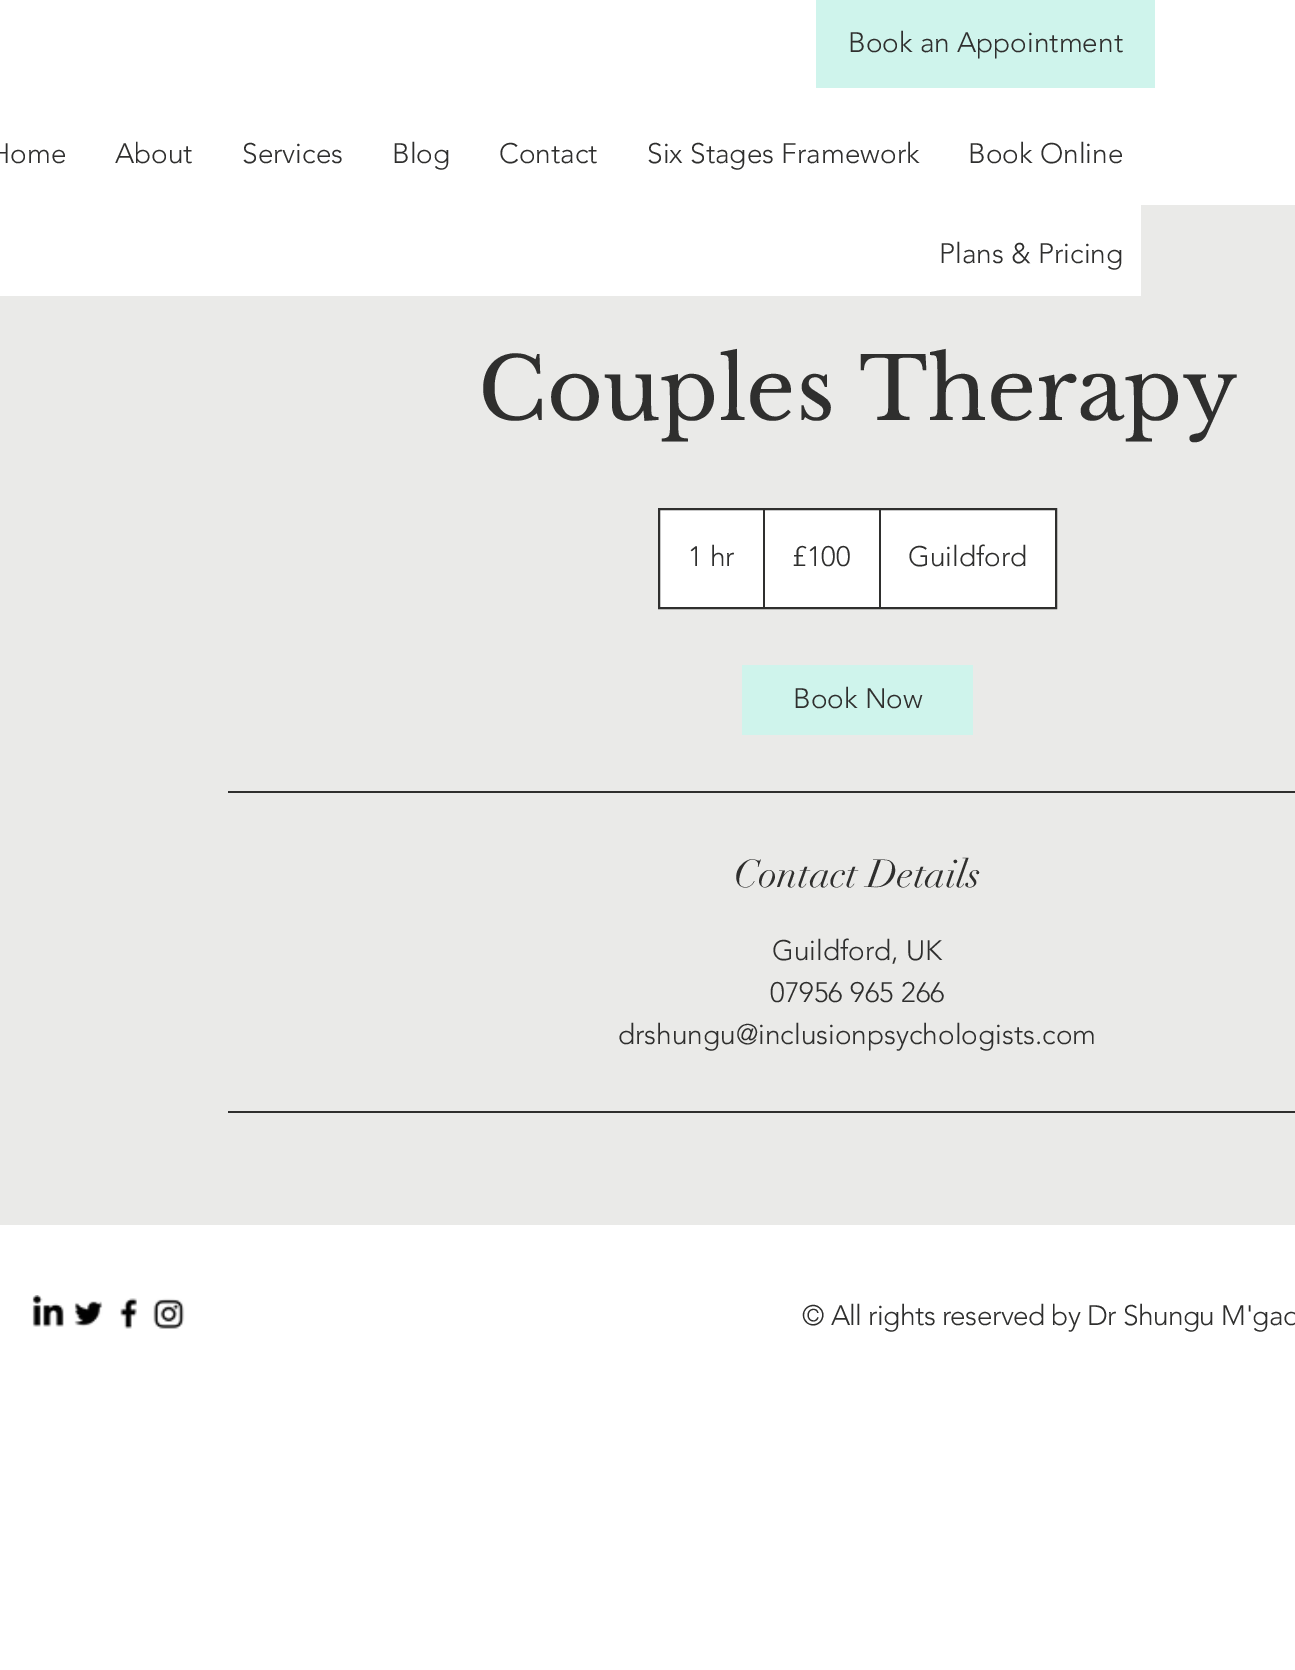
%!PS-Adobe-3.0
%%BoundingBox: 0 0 1295 1670
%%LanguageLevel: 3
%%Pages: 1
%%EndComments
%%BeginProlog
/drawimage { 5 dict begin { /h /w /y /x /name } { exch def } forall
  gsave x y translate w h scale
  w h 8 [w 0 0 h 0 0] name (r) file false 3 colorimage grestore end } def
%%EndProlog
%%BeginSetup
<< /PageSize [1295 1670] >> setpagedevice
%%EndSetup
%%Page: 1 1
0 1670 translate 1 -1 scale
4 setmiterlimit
1 setgray
0 0 1295 1670 rectfill
0.812 0.957 0.925 setrgbcolor
816 0 339 88 rectfill
0.918 0.918 0.91 setrgbcolor
0 205 1295 1020 rectfill
1 setgray
0 205 1141 91 rectfill
newpath 659 509 moveto 1056 509 lineto 1056 608 lineto 659 608 lineto closepath gsave fill grestore
0.184 0.184 0.18 setrgbcolor
2 setlinewidth
stroke
763 509 2 98 rectfill
879 509 2 98 rectfill
0.812 0.957 0.925 setrgbcolor
742 665 231 70 rectfill
0.184 0.184 0.18 setrgbcolor
228 791 1067 2 rectfill
228 1111 1067 2 rectfill
(images/1.raw) 32 1295 32 32 drawimage
(images/2.raw) 74 1301 29 26 drawimage
(images/3.raw) 120 1298 17 31 drawimage
(images/4.raw) 153 1298 32 31 drawimage
/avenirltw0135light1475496-Light [28 0 0 -28 0 0] selectfont
848 52 moveto (Book an Appointment) show
-10 163 moveto (Home) show
115 163 moveto (About) show
242 163 moveto (Services) show
392 163 moveto (Blog) show
499 163 moveto (Contact) show
647 163 moveto (Six Stages Framework) show
968 163 moveto (Book Online) show
939 263 moveto (Plans & Pricing) show
/LibreBaskerville-Regular [85.75 0 0 -85.75 0 0] selectfont
478 420 moveto (Couples Therapy) show
/avenirltw0135light1475496-Light [28 0 0 -28 0 0] selectfont
688 566 moveto (1 hr) show
792 566 moveto (£100) show
908 566 moveto (Guildford) show
793 708 moveto (Book Now) show
/didot-Regular [38.5 0 0 -38.5 0 0] selectfont
734 887 moveto (Contact Details) show
/avenirltw0135light1475496-Light [28 0 0 -28 0 0] selectfont
772 960 moveto (Guildford, UK) show
770 1002 moveto (07956 965 266) show
618 1044 moveto (drshungu@inclusionpsychologists.com) show
802 1325 moveto -0.55 0 (© All rights reserved by Dr Shungu M'gad) ashow
showpage
%%EOF
